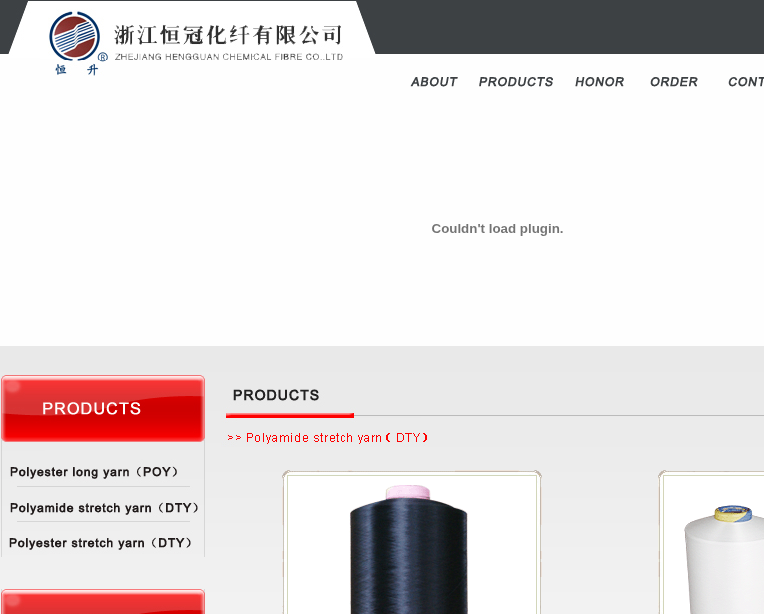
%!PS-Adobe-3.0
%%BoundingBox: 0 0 764 614
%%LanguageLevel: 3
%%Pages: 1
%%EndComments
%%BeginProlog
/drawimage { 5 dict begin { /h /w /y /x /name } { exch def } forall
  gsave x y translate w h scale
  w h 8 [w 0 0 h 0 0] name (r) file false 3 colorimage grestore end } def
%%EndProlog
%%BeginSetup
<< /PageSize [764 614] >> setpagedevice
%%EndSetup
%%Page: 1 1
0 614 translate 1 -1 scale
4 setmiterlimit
1 setgray
0 0 764 614 rectfill
(images/1.raw) 0 0 764 614 drawimage
(images/2.raw) 8 1 368 59 drawimage
(images/3.raw) 55 60 51 16 drawimage
(images/4.raw) 410 77 48 10 drawimage
(images/5.raw) 479 77 74 10 drawimage
(images/6.raw) 575 77 49 10 drawimage
(images/7.raw) 650 77 48 10 drawimage
(images/8.raw) 728 77 36 10 drawimage
(images/9.raw) 432 224 131 12 drawimage
(images/10.raw) 1 375 204 76 drawimage
(images/11.raw) 1 451 204 35 drawimage
(images/12.raw) 1 486 204 36 drawimage
(images/13.raw) 1 522 204 35 drawimage
(images/14.raw) 1 589 204 25 drawimage
(images/15.raw) 221 389 543 58 drawimage
(images/16.raw) 282 470 260 144 drawimage
(images/17.raw) 658 470 106 144 drawimage
showpage
%%EOF
